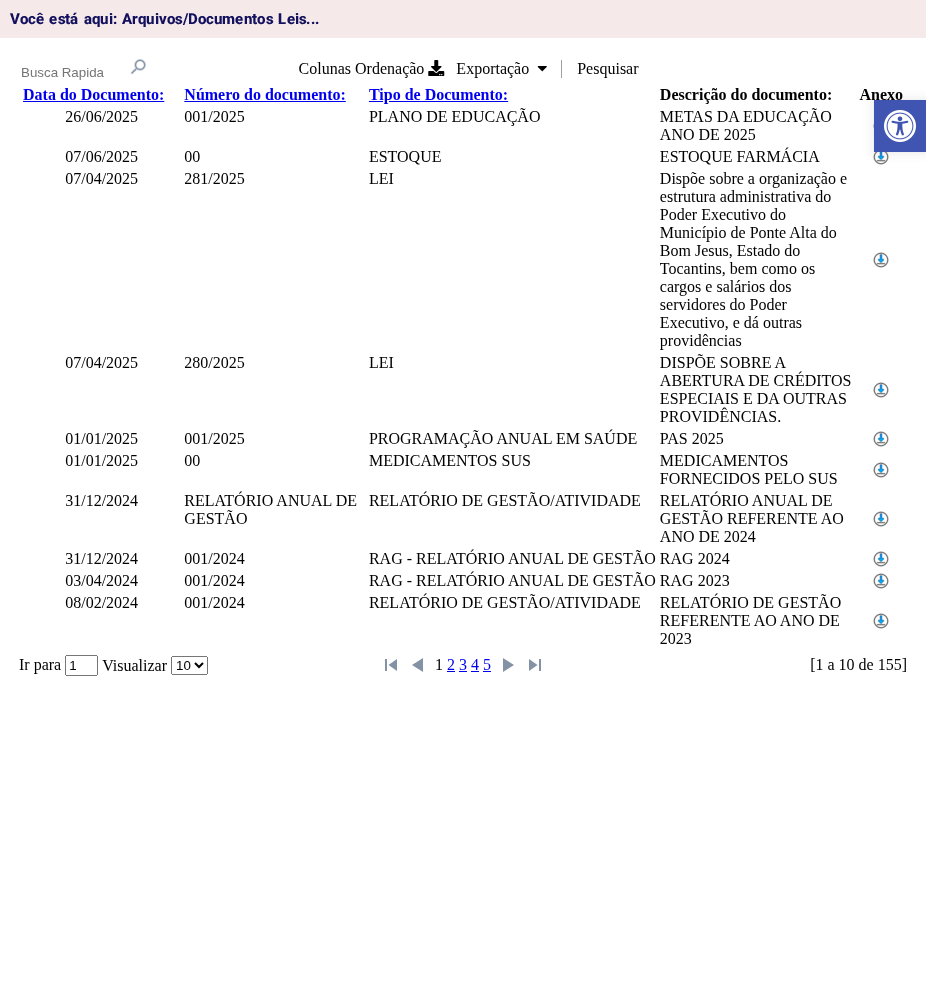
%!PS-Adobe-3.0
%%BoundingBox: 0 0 926 1008
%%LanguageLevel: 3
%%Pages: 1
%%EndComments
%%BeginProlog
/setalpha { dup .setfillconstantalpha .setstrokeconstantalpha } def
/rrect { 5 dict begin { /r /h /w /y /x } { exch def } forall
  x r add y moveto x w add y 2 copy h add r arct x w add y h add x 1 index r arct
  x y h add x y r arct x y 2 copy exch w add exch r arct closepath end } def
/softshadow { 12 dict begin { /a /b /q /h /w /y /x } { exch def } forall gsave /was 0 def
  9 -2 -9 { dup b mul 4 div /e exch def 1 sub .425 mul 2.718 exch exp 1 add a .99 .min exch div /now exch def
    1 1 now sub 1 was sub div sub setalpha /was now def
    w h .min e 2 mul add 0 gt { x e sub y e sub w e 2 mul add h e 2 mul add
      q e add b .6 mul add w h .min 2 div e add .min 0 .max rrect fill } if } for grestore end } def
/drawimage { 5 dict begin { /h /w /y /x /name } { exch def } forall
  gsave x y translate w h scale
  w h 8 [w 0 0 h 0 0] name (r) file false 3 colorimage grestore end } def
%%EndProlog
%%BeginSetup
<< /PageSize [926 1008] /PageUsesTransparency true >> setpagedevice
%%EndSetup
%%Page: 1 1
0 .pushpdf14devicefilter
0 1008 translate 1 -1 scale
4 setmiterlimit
1 setgray
0 0 926 1008 rectfill
0.961 0.914 0.914 setrgbcolor
0 0 926 38 rectfill
(images/1.raw) 19 59 887 617 drawimage
0 setgray
874 100 52 52 0 5 0.1 softshadow
0.251 0.329 0.698 setrgbcolor
874 100 52 52 rectfill
(images/2.raw) 884 110 32 32 drawimage
/Roboto-ExtraBold [15 0 0 -15 0 0] selectfont
0.075 0.067 0.369 setrgbcolor
10 24 moveto 1.5 0 32 (Você está aqui: Arquivos/Documentos Leis...) widthshow
.poppdf14devicefilter showpage
%%EOF
